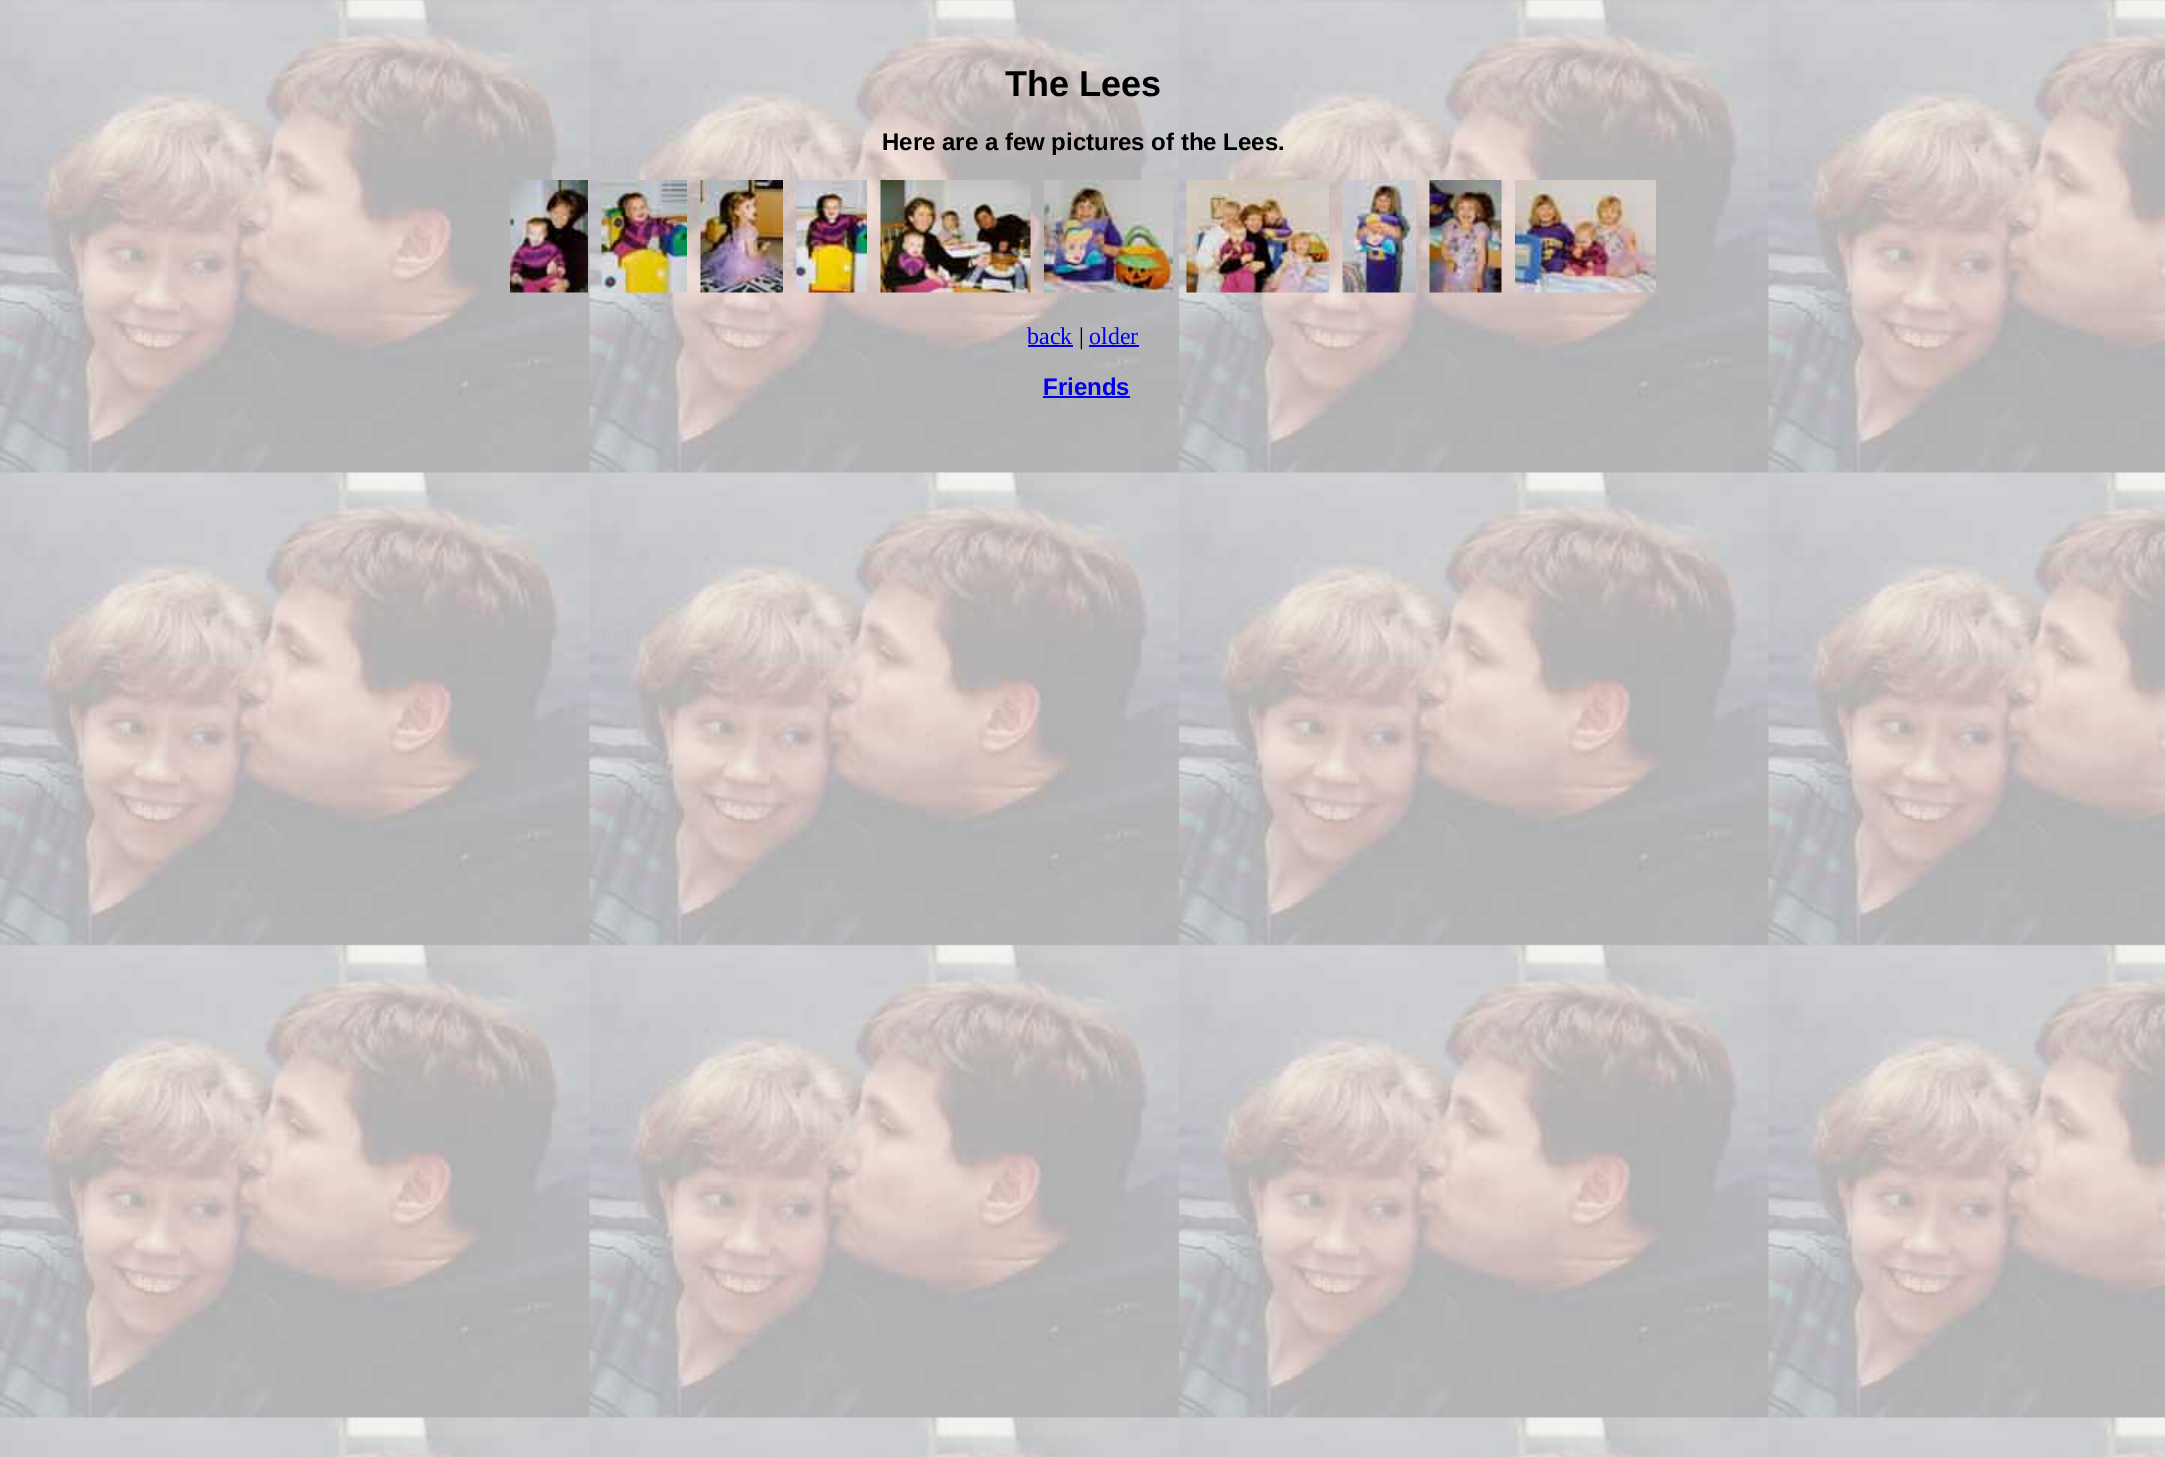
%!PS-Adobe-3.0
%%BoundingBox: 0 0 2165 1457
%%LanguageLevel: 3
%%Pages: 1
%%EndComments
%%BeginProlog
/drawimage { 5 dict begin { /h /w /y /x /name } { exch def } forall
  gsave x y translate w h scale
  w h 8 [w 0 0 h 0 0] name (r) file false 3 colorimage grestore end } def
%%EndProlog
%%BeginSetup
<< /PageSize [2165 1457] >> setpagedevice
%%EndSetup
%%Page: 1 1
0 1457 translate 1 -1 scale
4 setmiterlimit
1 setgray
0 0 2165 1457 rectfill
(images/1.raw) 0 0 2165 1457 drawimage
(images/2.raw) 510 180 78 113 drawimage
(images/3.raw) 601 180 86 113 drawimage
(images/4.raw) 700 180 83 113 drawimage
(images/5.raw) 796 180 71 113 drawimage
(images/6.raw) 880 180 151 113 drawimage
(images/7.raw) 1044 180 129 113 drawimage
(images/8.raw) 1186 180 143 113 drawimage
(images/9.raw) 1342 180 74 113 drawimage
(images/10.raw) 1429 180 73 113 drawimage
(images/11.raw) 1515 180 141 113 drawimage
0 0 0.933 setrgbcolor
1028 345 45 2 rectfill
1089 345 50 2 rectfill
1043 396 87 2 rectfill
/LiberationSans-Bold [36 0 0 -36 0 0] selectfont
0 setgray
1005 96 moveto (The Lees) show
/LiberationSans-Bold [24 0 0 -24 0 0] selectfont
882 150 moveto (Here are a few pictures of the Lees.) show
/LiberationSerif-Regular [24 0 0 -24 0 0] selectfont
0 0 0.933 setrgbcolor
1027 344 moveto (back) show
0 setgray
1079 344 moveto (|) show
0 0 0.933 setrgbcolor
1089 344 moveto (older) show
/LiberationSans-Bold [24 0 0 -24 0 0] selectfont
1043 395 moveto (Friends) show
showpage
%%EOF
